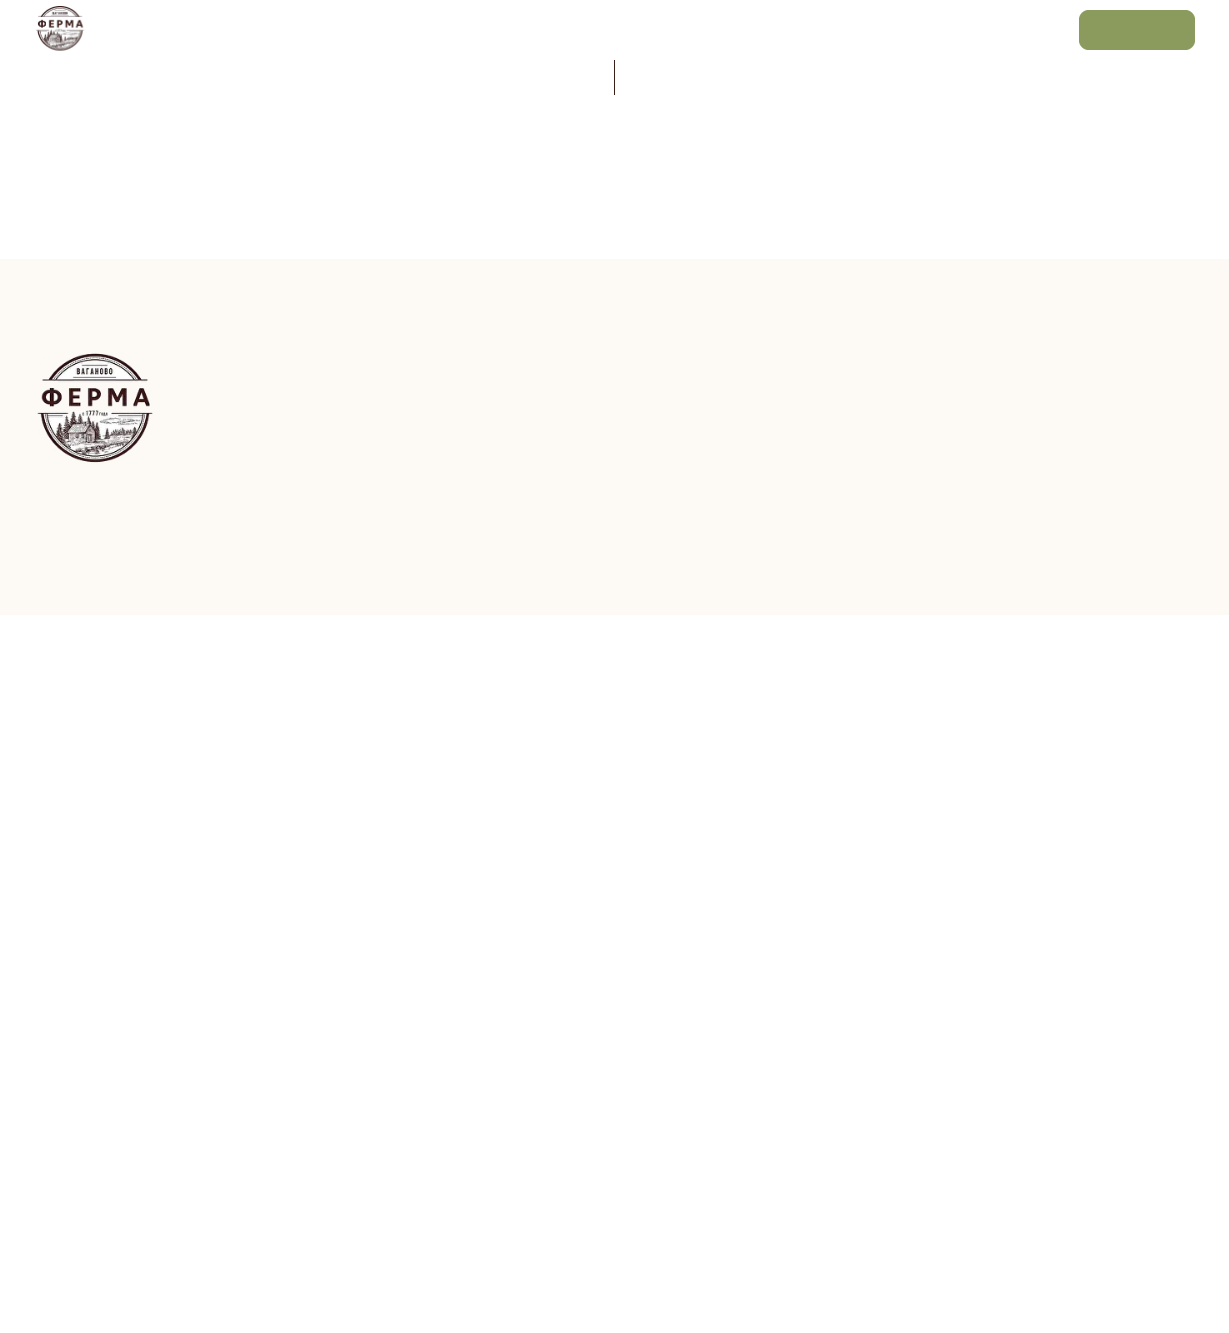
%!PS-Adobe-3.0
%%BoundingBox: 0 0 1229 1333
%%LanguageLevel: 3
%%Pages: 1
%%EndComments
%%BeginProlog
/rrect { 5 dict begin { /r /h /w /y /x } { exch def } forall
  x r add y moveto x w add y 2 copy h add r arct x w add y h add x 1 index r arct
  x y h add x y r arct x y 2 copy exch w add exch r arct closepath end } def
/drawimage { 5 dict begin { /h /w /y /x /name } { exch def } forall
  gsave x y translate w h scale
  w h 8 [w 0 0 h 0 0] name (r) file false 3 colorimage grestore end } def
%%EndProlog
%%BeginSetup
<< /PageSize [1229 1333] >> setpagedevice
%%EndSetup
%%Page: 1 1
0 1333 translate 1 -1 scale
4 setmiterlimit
1 setgray
0 0 1229 1333 rectfill
(images/1.raw) 36 6 49 45 drawimage
0.545 0.608 0.365 setrgbcolor
1079 10 116 40 10 rrect fill
0.227 0.122 0.086 setrgbcolor
614 60 1 35 rectfill
0.992 0.98 0.961 setrgbcolor
0 259 1229 356 rectfill
(images/2.raw) 37 353 116 110 drawimage
showpage
%%EOF
